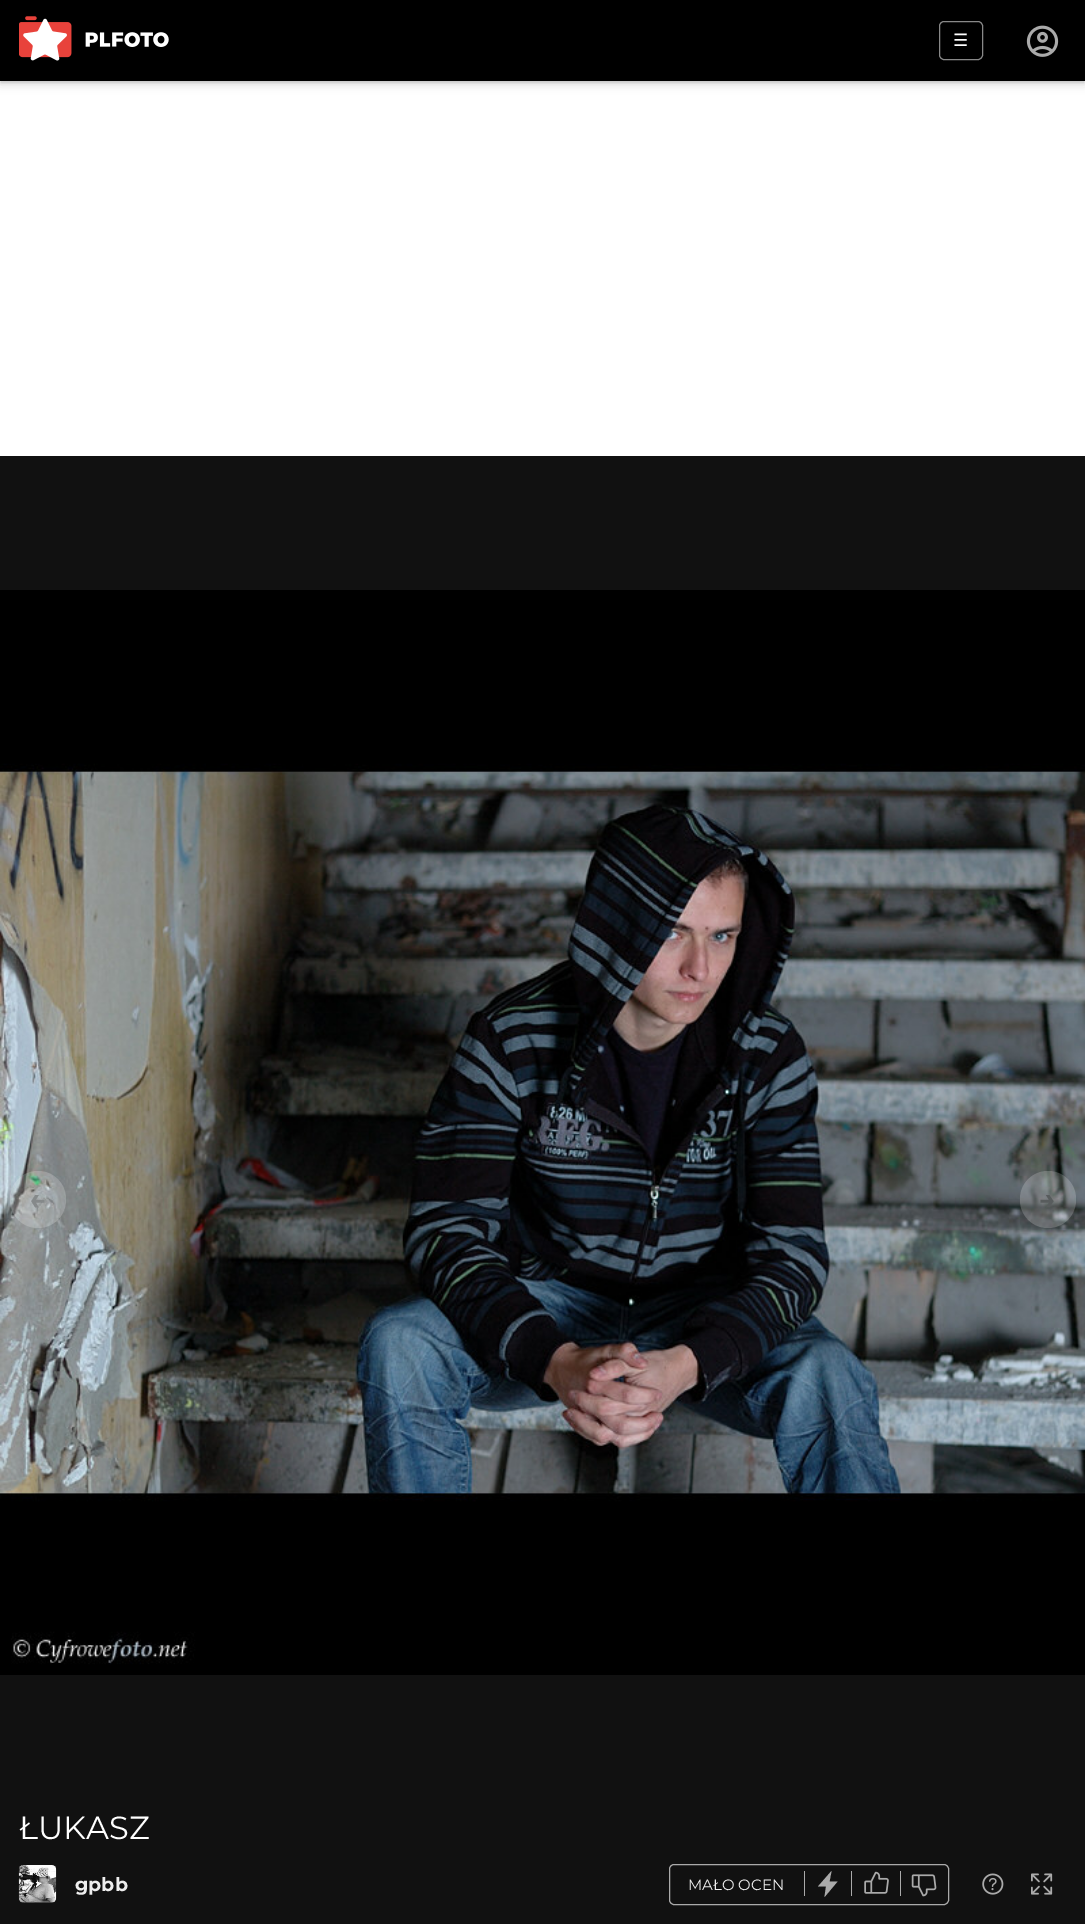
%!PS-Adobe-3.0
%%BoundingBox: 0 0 1085 1931
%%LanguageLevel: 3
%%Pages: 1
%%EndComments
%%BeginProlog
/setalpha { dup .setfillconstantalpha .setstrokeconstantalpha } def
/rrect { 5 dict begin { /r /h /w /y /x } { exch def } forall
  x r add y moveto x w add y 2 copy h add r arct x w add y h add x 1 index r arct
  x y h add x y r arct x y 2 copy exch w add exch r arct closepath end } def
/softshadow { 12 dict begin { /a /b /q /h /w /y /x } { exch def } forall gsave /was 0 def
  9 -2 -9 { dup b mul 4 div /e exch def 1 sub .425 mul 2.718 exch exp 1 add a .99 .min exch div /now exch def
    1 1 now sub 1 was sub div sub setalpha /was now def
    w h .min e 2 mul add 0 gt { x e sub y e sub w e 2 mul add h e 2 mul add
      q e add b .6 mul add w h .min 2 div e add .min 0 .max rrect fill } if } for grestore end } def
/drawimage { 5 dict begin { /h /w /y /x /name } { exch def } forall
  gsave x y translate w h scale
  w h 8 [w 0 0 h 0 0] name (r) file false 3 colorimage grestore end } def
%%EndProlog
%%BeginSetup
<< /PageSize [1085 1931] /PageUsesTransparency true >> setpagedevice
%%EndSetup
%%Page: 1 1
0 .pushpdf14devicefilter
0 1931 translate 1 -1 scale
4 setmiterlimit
1 setgray
0 0 1085 1931 rectfill
0 setgray
0 1 1085 82 0 1 0.11 softshadow
0 4 1085 81 0 4.5 0.13 softshadow
0 0 1085 81 rectfill
(images/1.raw) 19 16 150 45 drawimage
0.533 setgray
939.5 21.5 43 38 4.5 rrect stroke
(images/2.raw) 1026 25 33 32 drawimage
0.067 setgray
0 456 1085 1468 rectfill
(images/3.raw) 0 590 1085 1085 drawimage
0.2 setalpha
1 setgray
10 1171 56 57 28 rrect fill
1020 1171 56 57 28 rrect fill
1 setalpha
0.2 setgray
19 1865 37 38 5 rrect fill
(images/4.raw) 18 1865 39 38 drawimage
0.667 setgray
669.5 1864.5 279 40 4.5 rrect stroke
804 1871 1 25 rectfill
newpath 837.5 1881.5 moveto 829.5 1881.5 lineto 831.5 1871 lineto 818 1886.5 lineto 826 1886.5 lineto 824.5 1897 lineto closepath fill
851 1871 1 25 rectfill
(images/5.raw) 864 1871 25 23 drawimage
900 1871 1 25 rectfill
(images/6.raw) 911 1874 26 23 drawimage
(images/7.raw) 982 1873 22 22 drawimage
(images/8.raw) 1031 1873 22 22 drawimage
/DejaVuSans-Regular [17 0 0 -17 0 0] selectfont
1 setgray
953 46 moveto (☰) show
/Montserrat-Bold [28 0 0 -28 0 0] selectfont
0.522 0.537 0.541 setrgbcolor
29 1209 moveto (←) show
0.345 0.361 0.365 setrgbcolor
1039 1209 moveto (→) show
/Montserrat-Regular [32 0 0 -32 0 0] selectfont
1 setgray
19 1839 moveto (ŁUKASZ) show
/Montserrat-Bold [19 0 0 -19 0 0] selectfont
0.933 setgray
75 1891 moveto (gpbb) show
/Montserrat-Regular [15 0 0 -15 0 0] selectfont
688 1890 moveto (MAŁO OCEN) show
.poppdf14devicefilter showpage
%%EOF
